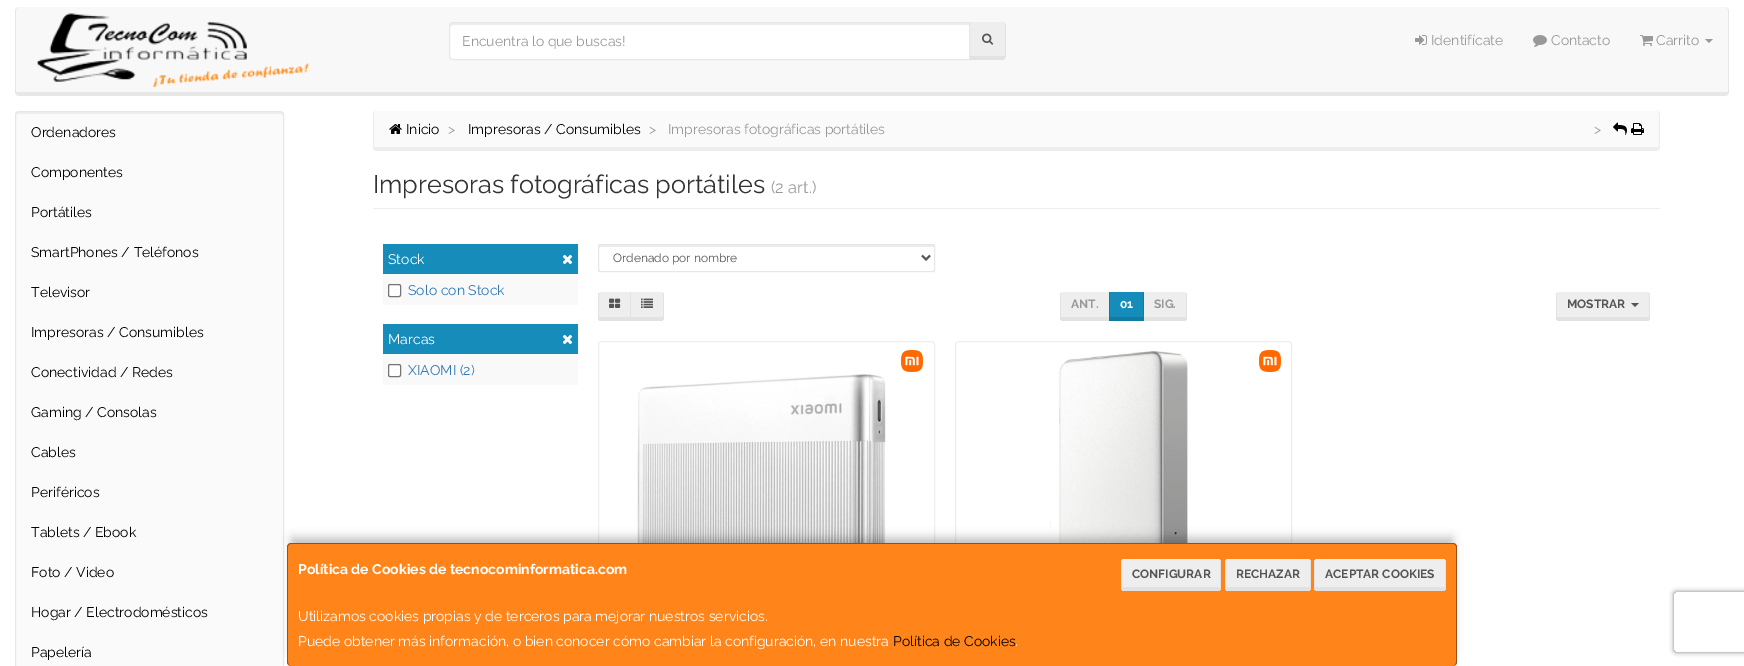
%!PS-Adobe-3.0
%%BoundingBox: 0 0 1744 666
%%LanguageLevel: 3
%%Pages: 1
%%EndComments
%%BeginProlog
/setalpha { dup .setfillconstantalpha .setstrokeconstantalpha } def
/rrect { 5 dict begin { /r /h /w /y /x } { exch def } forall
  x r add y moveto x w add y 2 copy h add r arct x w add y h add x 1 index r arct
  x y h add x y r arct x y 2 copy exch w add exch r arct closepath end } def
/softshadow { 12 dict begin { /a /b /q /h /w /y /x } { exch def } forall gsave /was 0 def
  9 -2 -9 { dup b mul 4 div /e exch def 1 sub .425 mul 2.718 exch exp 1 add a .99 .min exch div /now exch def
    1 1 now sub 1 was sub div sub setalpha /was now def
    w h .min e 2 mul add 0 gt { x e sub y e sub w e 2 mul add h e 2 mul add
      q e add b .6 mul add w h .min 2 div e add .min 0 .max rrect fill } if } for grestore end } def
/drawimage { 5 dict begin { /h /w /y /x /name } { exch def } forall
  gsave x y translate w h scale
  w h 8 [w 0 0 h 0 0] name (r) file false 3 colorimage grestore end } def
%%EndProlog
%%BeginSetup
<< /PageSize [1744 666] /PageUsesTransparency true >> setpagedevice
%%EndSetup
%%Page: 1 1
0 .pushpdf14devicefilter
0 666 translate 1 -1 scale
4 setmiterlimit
1 setgray
0 0 1744 666 rectfill
0.973 setgray
newpath 19 7 moveto 1725 7 lineto 1727 7 1728 9 1728 11 curveto 1728 92 lineto 16 92 lineto 16 11 lineto 16 9 17 7 19 7 curveto closepath fill
0.906 setgray
newpath 19 7 moveto 1725 7 lineto 1727 7 1729 9 1729 11 curveto 1729 92 lineto 1729 94 1727 96 1725 96 curveto 19 96 lineto 17 96 15 94 15 92 curveto 15 11 lineto 15 9 17 7 19 7 curveto closepath 19 7 moveto 1725 7 lineto 1727 7 1728 9 1728 11 curveto 1728 92 lineto 16 92 lineto 16 11 lineto 16 9 17 7 19 7 curveto closepath eofill
(images/1.raw) 37 13 272 75 drawimage
0.933 setgray
newpath 970 22 moveto 1002 22 lineto 1003.5 22 1005 24 1005 26 curveto 1005 56 lineto 970 56 lineto closepath fill
0.886 setgray
newpath 969 22 moveto 1002 22 lineto 1004 22 1006 24 1006 26 curveto 1006 56 lineto 1006 58 1004 60 1002 60 curveto 969 60 lineto closepath 970 22 moveto 1002 22 lineto 1003.5 22 1005 24 1005 26 curveto 1005 56 lineto 970 56 lineto closepath eofill
1 setgray
newpath 453 22 moveto 970 22 lineto 970 60 lineto 453 60 lineto 451 60 449 58 449 56 curveto 449 26 lineto 449 24 451 22 453 22 curveto closepath fill
0.925 setgray
newpath 453 25 moveto 969 25 lineto 969 23 lineto 453 23 lineto 450 23 450 26 450 28 curveto 450 26 451 25 453 25 curveto closepath fill
0.906 setgray
newpath 453 22.5 moveto 969.5 22.5 lineto 969.5 59.5 lineto 453 59.5 lineto 451 59.5 449.5 58 449.5 56 curveto 449.5 26 lineto 449.5 24 451 22.5 453 22.5 curveto closepath stroke
(images/2.raw) 982 33 12 12 drawimage
(images/3.raw) 1415 35 12 10 drawimage
(images/4.raw) 1533 35 14 12 drawimage
(images/5.raw) 1640 35 13 11 drawimage
0.6 setgray
newpath 1705 39 moveto 1713 39 lineto 1709 43 lineto closepath fill
0.98 setgray
15 111 269 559 4 rrect fill
0.933 setgray
newpath 19 114 moveto 280 114 lineto 282 114 283 115 283 117 curveto 283 115 lineto 283 113 282 112 280 112 curveto 19 112 lineto 17 112 16 113 16 115 curveto 16 117 lineto 16 115 17 114 19 114 curveto closepath fill
0.906 setgray
15.5 111.5 268 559 3.5 rrect stroke
0.98 setgray
newpath 377 111 moveto 1656 111 lineto 1658 111 1659 113 1659 115 curveto 1659 147 lineto 374 147 lineto 374 115 lineto 374 113 375 111 377 111 curveto closepath fill
0.929 setgray
newpath 377 111 moveto 1656 111 lineto 1658 111 1660 113 1660 115 curveto 1660 147 lineto 1660 149 1658 151 1656 151 curveto 377 151 lineto 375 151 373 149 373 147 curveto 373 115 lineto 373 113 375 111 377 111 curveto closepath 377 111 moveto 1656 111 lineto 1658 111 1659 113 1659 115 curveto 1659 147 lineto 374 147 lineto 374 115 lineto 374 113 375 111 377 111 curveto closepath eofill
(images/6.raw) 389 124 13 10 drawimage
(images/7.raw) 1613 122 14 13 drawimage
(images/8.raw) 1631 123 13 12 drawimage
0.933 setgray
373 208 1287 1 rectfill
0.082 0.549 0.729 setrgbcolor
383 244 195 30 rectfill
(images/9.raw) 562 254 11 11 drawimage
0.976 setgray
383 274 195 31 rectfill
1 setgray
388.5 284.5 12 12 1.5 rrect gsave fill grestore
0.463 setgray
stroke
0.082 0.549 0.729 setrgbcolor
383 324 195 30 rectfill
(images/9.raw) 562 334 11 11 drawimage
0.976 setgray
383 354 195 31 rectfill
1 setgray
388.5 364.5 12 12 1.5 rrect gsave fill grestore
0.463 setgray
stroke
0.925 setgray
newpath 600 247 moveto 934 247 lineto 934 246 934 245 933 245 curveto 600 245 lineto 599 246 599 247 599 248 curveto closepath fill
0.906 setgray
598.5 244.5 336 27 1.5 rrect stroke
0.333 setgray
2 setlinewidth
newpath 922 255.5 moveto 926 259.5 lineto 930 255.5 lineto stroke
0.933 setgray
newpath 600 292 moveto 630 292 lineto 630 317 lineto 599 317 lineto 599 293 lineto closepath fill
0.886 setgray
630 292 1 29 rectfill
599 317 64 4 rectfill
598 293 1 27 rectfill
(images/10.raw) 609 298 12 10 drawimage
0.933 setgray
newpath 631 292 moveto 662 292 lineto 662.5 292 663 293 663 294 curveto 663 317 lineto 631 317 lineto closepath fill
0.886 setgray
663 293 1 27 rectfill
(images/11.raw) 641 298 12 10 drawimage
0.933 setgray
newpath 1062 292 moveto 1109 292 lineto 1109 317 lineto 1061 317 lineto 1061 293 lineto closepath fill
0.886 setgray
1061 317 49 4 rectfill
1060 293 1 27 rectfill
0.082 0.549 0.729 setrgbcolor
1110 292 33 25 rectfill
0.886 setgray
1143 317 43 4 rectfill
0.071 0.482 0.639 setrgbcolor
1143 292 1 29 rectfill
1109 317 35 4 rectfill
1109 292 1 29 rectfill
0.933 setgray
newpath 1144 292 moveto 1185 292 lineto 1186 292 1186 293 1186 294 curveto 1186 317 lineto 1144 317 lineto closepath fill
0.886 setgray
1186 293 1 27 rectfill
0.933 setgray
newpath 1558 292 moveto 1648 292 lineto 1649 292 1649 293 1649 294 curveto 1649 317 lineto 1557 317 lineto 1557 293 lineto closepath fill
0.886 setgray
1649 293 1 27 rectfill
1557 317 92 4 rectfill
1556 293 1 27 rectfill
0.333 setgray
newpath 1631 303 moveto 1639 303 lineto 1635 307 lineto closepath fill
0.933 setgray
1 setlinewidth
598.5 341.5 336 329 3.5 rrect stroke
(images/12.raw) 901 350 22 22 drawimage
(images/13.raw) 637 374 249 169 drawimage
955.5 341.5 336 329 3.5 rrect stroke
(images/14.raw) 1050 351 138 192 drawimage
(images/12.raw) 1259 350 22 22 drawimage
0 setgray
292 538 1160 113 0 5 0.25 softshadow
1 0.522 0.106 setrgbcolor
287 543 1170 123 4 rrect fill
0.4 setalpha
0 setgray
newpath 291 543 moveto 1453 543 lineto 1455 543 1457 545 1457 547 curveto 1457 662 lineto 1457 664 1455 666 1453 666 curveto 291 666 lineto 289 666 287 664 287 662 curveto 287 547 lineto 287 545 289 543 291 543 curveto closepath 291 544 moveto 1453 544 lineto 1455 544 1456 545 1456 547 curveto 1456 662 lineto 1456 664 1455 666 1453 666 curveto 291 666 lineto 289 666 288 664 288 662 curveto 288 547 lineto 288 545 289 544 291 544 curveto closepath eofill
1 setalpha
0.933 setgray
newpath 1123 559 moveto 1219 559 lineto 1220 559 1220 560 1220 561 curveto 1220 587 lineto 1122 587 lineto 1122 561 lineto 1122 560 1122 559 1123 559 curveto closepath fill
0.886 setgray
1220 560 1 30 rectfill
1122 587 98 4 rectfill
1121 560 1 30 rectfill
0.933 setgray
newpath 1227 559 moveto 1309 559 lineto 1310 559 1310 560 1310 561 curveto 1310 587 lineto 1226 587 lineto 1226 561 lineto 1226 560 1226 559 1227 559 curveto closepath fill
0.886 setgray
1310 560 1 30 rectfill
1226 587 84 4 rectfill
1225 560 1 30 rectfill
0.933 setgray
newpath 1316 559 moveto 1444 559 lineto 1445 559 1445 560 1445 561 curveto 1445 587 lineto 1315 587 lineto 1315 561 lineto 1315 560 1315 559 1316 559 curveto closepath fill
0.886 setgray
1445 560 1 30 rectfill
1315 587 130 4 rectfill
1314 560 1 30 rectfill
gsave
newpath 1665 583 moveto 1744 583 lineto 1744 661 lineto 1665 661 lineto closepath 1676 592 moveto 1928 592 lineto 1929 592 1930 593 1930 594 curveto 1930 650 lineto 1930 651 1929 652 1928 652 curveto 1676 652 lineto 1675 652 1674 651 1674 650 curveto 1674 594 lineto 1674 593 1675 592 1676 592 curveto closepath eoclip newpath
0.502 setgray
1674 592 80 60 2 2.5 1 softshadow
grestore
/Raleway-Regular [14 0 0 -14 0 0] selectfont
0.6 setgray
462 46 moveto (Encuentra lo que buscas!) show
1431 45 moveto (Identifícate) show
1551 45 moveto (Contacto) show
1656 45 moveto (Carrito) show
0 setgray
31 137 moveto (Ordenadores) show
31 177 moveto (Componentes) show
31 217 moveto (Portátiles) show
31 257 moveto (SmartPhones / Teléfonos) show
31 297 moveto (Televisor) show
31 337 moveto (Impresoras / Consumibles) show
31 377 moveto (Conectividad / Redes) show
31 417 moveto (Gaming / Consolas) show
31 457 moveto (Cables) show
31 497 moveto (Periféricos) show
31 537 moveto (Tablets / Ebook) show
31 577 moveto (Foto / Video) show
31 617 moveto (Hogar / Electrodomésticos) show
31 657 moveto (Papelería) show
406 134 moveto (Inicio) show
0.6 setgray
448 134 moveto (>) show
0 setgray
468 134 moveto (Impresoras / Consumibles) show
0.6 setgray
649 134 moveto (>) show
668 134 moveto (Impresoras fotográficas portátiles) show
1594 134 moveto (>) show
/Raleway-Regular [25.25 0 0 -25.25 0 0] selectfont
0.2 setgray
373 193 moveto (Impresoras fotográficas portátiles) show
/Raleway-Regular [16.5 0 0 -16.5 0 0] selectfont
0.6 setgray
771 193 moveto (\(2 art.\)) show
/Raleway-Regular [14 0 0 -14 0 0] selectfont
1 setgray
388 264 moveto (Stock) show
0.2 0.478 0.718 setrgbcolor
408 295 moveto (Solo con Stock) show
1 setgray
388 344 moveto (Marcas) show
0.2 0.478 0.718 setrgbcolor
408 375 moveto (XIAOMI \(2\)) show
/Raleway-Regular [12 0 0 -12 0 0] selectfont
0.333 setgray
613 262 moveto (Ordenado por nombre) show
/Raleway-Bold [12 0 0 -12 0 0] selectfont
0.6 setgray
1071 308 moveto (ANT.) show
1 setgray
1120 308 moveto (01) show
0.6 setgray
1154 308 moveto (SIG.) show
0.333 setgray
1567 308 moveto (MOSTRAR) show
/Raleway-Bold [14 0 0 -14 0 0] selectfont
1 setgray
298 574 moveto (Política de Cookies de tecnocominformatica.com) show
/Raleway-Bold [12 0 0 -12 0 0] selectfont
0.333 setgray
1132 578 moveto (CONFIGURAR) show
1236 578 moveto (RECHAZAR) show
1325 578 moveto (ACEPTAR COOKIES) show
/Raleway-Regular [14 0 0 -14 0 0] selectfont
1 setgray
298 621 moveto (Utilizamos cookies propias y de terceros para mejorar nuestros servicios.) show
298 646 moveto (Puede obtener más información, o bien conocer cómo cambiar la configuración, en nuestra) show
0 setgray
893 646 moveto (Política de Cookies) show
1 setgray
1015 646 moveto (.) show
.poppdf14devicefilter showpage
%%EOF
